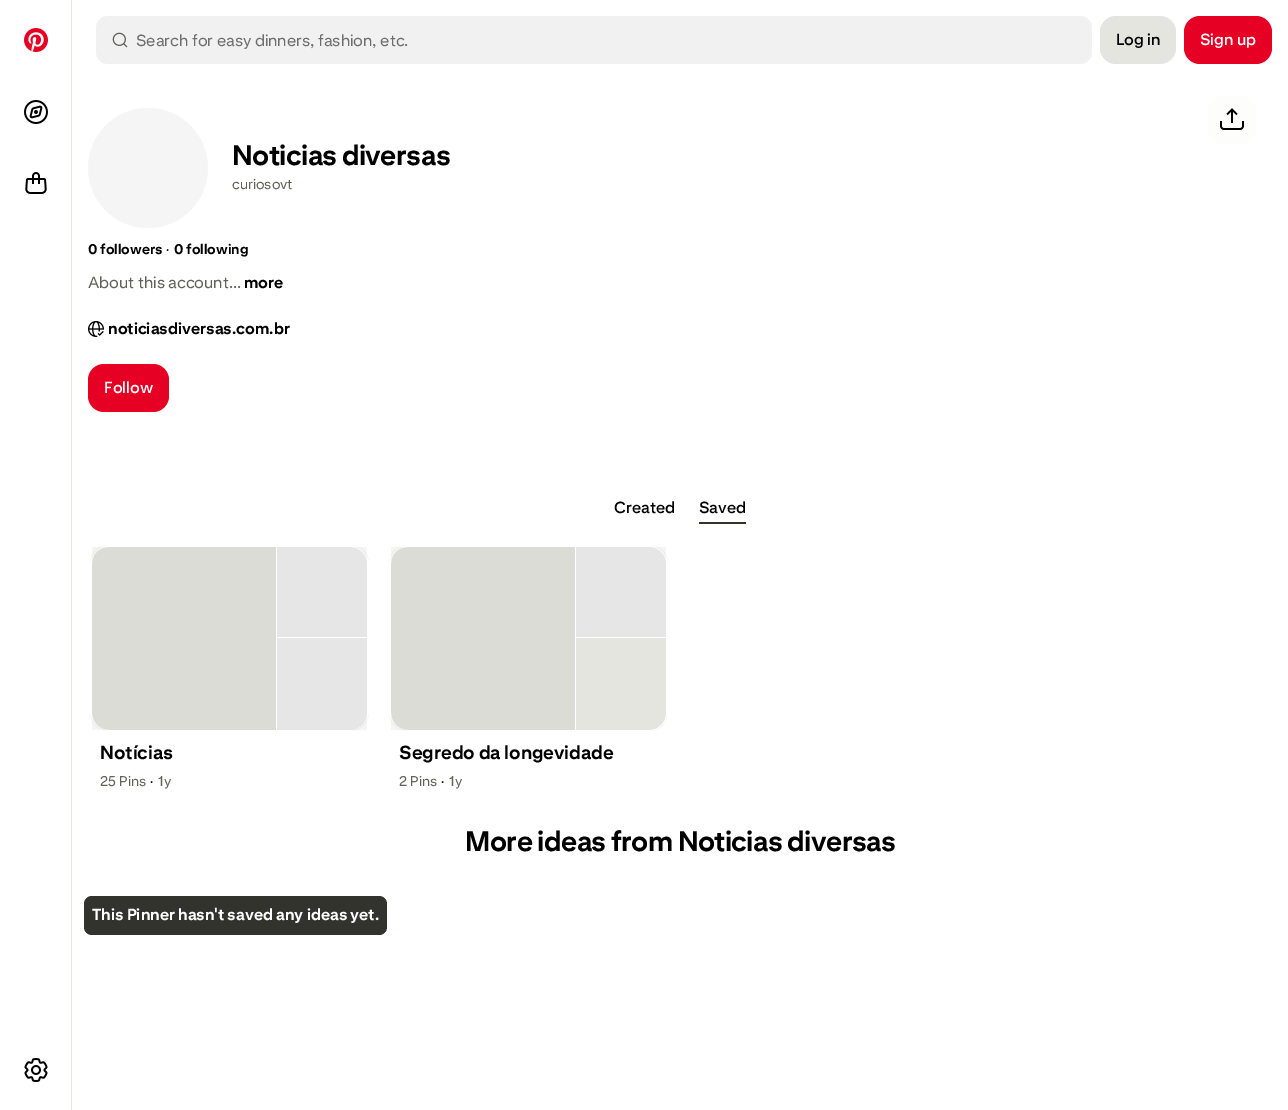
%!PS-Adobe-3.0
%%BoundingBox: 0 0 1288 1110
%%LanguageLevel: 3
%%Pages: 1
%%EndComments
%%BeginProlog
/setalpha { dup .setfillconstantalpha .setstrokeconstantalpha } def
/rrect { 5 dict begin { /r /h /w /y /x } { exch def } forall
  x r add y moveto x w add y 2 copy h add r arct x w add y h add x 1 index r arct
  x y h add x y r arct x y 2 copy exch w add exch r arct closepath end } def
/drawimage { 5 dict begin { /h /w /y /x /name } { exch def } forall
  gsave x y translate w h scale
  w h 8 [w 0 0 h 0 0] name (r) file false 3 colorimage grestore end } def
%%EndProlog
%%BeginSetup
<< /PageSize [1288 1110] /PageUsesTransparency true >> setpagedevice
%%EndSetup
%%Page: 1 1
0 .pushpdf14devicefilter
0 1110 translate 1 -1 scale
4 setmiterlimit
1 setgray
0 0 1288 1110 rectfill
0.898 0.898 0.878 setrgbcolor
71 0 1 1110 rectfill
(images/1.raw) 24 28 24 24 drawimage
(images/2.raw) 24 100 24 24 drawimage
(images/3.raw) 25 172 22 22 drawimage
(images/4.raw) 24 1058 24 24 drawimage
0.945 setgray
96 16 996 48 12 rrect fill
(images/5.raw) 112 32 16 16 drawimage
0.898 0.898 0.878 setrgbcolor
1100 16 76 48 16 rrect fill
0.902 0 0.137 setrgbcolor
1184 16 88 48 16 rrect fill
0.992 0.992 0.988 setrgbcolor
1208 96 48 48 16 rrect fill
(images/6.raw) 1220 108 24 22 drawimage
0.961 setgray
newpath 148 168 60 0 360 arc closepath fill
(images/7.raw) 88 321 16 16 drawimage
0.902 0 0.137 setrgbcolor
88 364 81 48 16 rrect fill
0.2 0.2 0.18 setrgbcolor
699 522 47 2 rectfill
0.898 0.898 0.878 setrgbcolor
newpath 109 545 moveto 276 545 lineto 276 731 lineto 109 731 lineto 98.5 731 90 722.5 90 712 curveto 90 564 lineto 90 553.5 98.5 545 109 545 curveto closepath fill
1 setgray
newpath 109 545 moveto 276 545 lineto 276 731 lineto 109 731 lineto 99 731 90 722 90 712 curveto 90 564 lineto 90 554 99 545 109 545 curveto closepath 109 547 moveto 276 547 lineto 276 730 lineto 109 730 lineto 99 730 92 722 92 712 curveto 92 564 lineto 92 554 99 547 109 547 curveto closepath eofill
0.04 setalpha
0 setgray
92 547 184 183 rectfill
1 setalpha
0.898 0.898 0.878 setrgbcolor
newpath 276 545 moveto 350 545 lineto 360.5 545 369 553.5 369 564 curveto 369 638 lineto 276 638 lineto closepath fill
1 setgray
newpath 276 545 moveto 276 638 lineto 369 638 lineto 369 564 lineto 369 554 360 545 350 545 curveto closepath fill
0.937 setgray
newpath 277 547 moveto 349 547 lineto 359 547 367 555 367 565 curveto 367 637 lineto 277 637 lineto closepath fill
0.04 setalpha
0 setgray
277 547 90 90 rectfill
1 setalpha
0.898 0.898 0.878 setrgbcolor
newpath 276 638 moveto 369 638 lineto 369 712 lineto 369 722.5 360.5 731 350 731 curveto 276 731 lineto closepath fill
1 setgray
newpath 276 638 moveto 369 638 lineto 369 712 lineto 369 722 360 731 350 731 curveto 276 731 lineto closepath 277 638 moveto 367 638 lineto 367 712 lineto 367 722 360 730 350 730 curveto 277 730 lineto closepath eofill
0.937 setgray
newpath 277 638 moveto 367 638 lineto 367 712 lineto 367 722 359 730 349 730 curveto 277 730 lineto closepath fill
0.04 setalpha
0 setgray
277 638 90 92 rectfill
1 setalpha
0.898 0.898 0.878 setrgbcolor
newpath 408 545 moveto 575 545 lineto 575 731 lineto 408 731 lineto 397.5 731 389 722.5 389 712 curveto 389 564 lineto 389 553.5 397.5 545 408 545 curveto closepath fill
1 setgray
newpath 408 545 moveto 575 545 lineto 575 731 lineto 408 731 lineto 398 731 389 722 389 712 curveto 389 564 lineto 389 554 398 545 408 545 curveto closepath 408 547 moveto 575 547 lineto 575 730 lineto 408 730 lineto 398 730 391 722 391 712 curveto 391 564 lineto 391 554 398 547 408 547 curveto closepath eofill
0.04 setalpha
0 setgray
391 547 184 183 rectfill
1 setalpha
0.898 0.898 0.878 setrgbcolor
newpath 575 545 moveto 649 545 lineto 659.5 545 668 553.5 668 564 curveto 668 638 lineto 575 638 lineto closepath fill
1 setgray
newpath 575 545 moveto 575 638 lineto 668 638 lineto 668 564 lineto 668 554 659 545 649 545 curveto closepath fill
0.937 setgray
newpath 576 547 moveto 648 547 lineto 658 547 666 555 666 565 curveto 666 637 lineto 576 637 lineto closepath fill
0.04 setalpha
0 setgray
576 547 90 90 rectfill
1 setalpha
0.898 0.898 0.878 setrgbcolor
newpath 575 638 moveto 668 638 lineto 668 712 lineto 668 722.5 659.5 731 649 731 curveto 575 731 lineto closepath fill
1 setgray
newpath 575 638 moveto 668 638 lineto 668 712 lineto 668 722 659 731 649 731 curveto 575 731 lineto closepath 576 638 moveto 666 638 lineto 666 712 lineto 666 722 659 730 649 730 curveto 576 730 lineto closepath eofill
0.898 0.898 0.878 setrgbcolor
newpath 576 638 moveto 666 638 lineto 666 712 lineto 666 722 658 730 648 730 curveto 576 730 lineto closepath fill
0.2 0.2 0.18 setrgbcolor
84 896 303 39 8 rrect fill
/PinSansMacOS-Regular [16 0 0 -16 0 0] selectfont
0.431 setgray
136 46 moveto (Search for easy dinners, fashion, etc.) show
/PinSansMacOS-Medium [16 0 0 -16 0 0] selectfont
0 setgray
1116 45 moveto (Log in) show
1 setgray
1200 45 moveto (Sign up) show
/PinSansMacOS-Bold [28 0 0 -28 0 0] selectfont
0 setgray
232 165 moveto -0.5 0 (Noticias diversas) ashow
/PinSansMacOS-Regular [14 0 0 -14 0 0] selectfont
0.384 0.384 0.357 setrgbcolor
232 189 moveto (curiosovt) show
/PinSansMacOS-Bold [14 0 0 -14 0 0] selectfont
0 setgray
88 254 moveto (0 followers) show
/PinSansMacOS-Regular [14 0 0 -14 0 0] selectfont
166 254 moveto (·) show
/PinSansMacOS-Bold [14 0 0 -14 0 0] selectfont
174 254 moveto (0 following) show
/PinSansMacOS-Regular [16 0 0 -16 0 0] selectfont
0.384 0.384 0.357 setrgbcolor
88 288 moveto (About this account...) show
/PinSansMacOS-Bold [16 0 0 -16 0 0] selectfont
0 setgray
244 288 moveto (more) show
108 334 moveto (noticiasdiversas.com.br) show
/PinSansMacOS-Medium [16 0 0 -16 0 0] selectfont
1 setgray
104 393 moveto (Follow) show
0 setgray
614 513 moveto (Created) show
699 513 moveto (Saved) show
/PinSansMacOS-Bold [18.75 0 0 -18.75 0 0] selectfont
100 759 moveto (Notícias) show
/PinSansMacOS-Regular [14 0 0 -14 0 0] selectfont
0.384 0.384 0.357 setrgbcolor
100 786 moveto (25 Pins) show
0 setgray
150 786 moveto (·) show
0.384 0.384 0.357 setrgbcolor
158 786 moveto (1y) show
/PinSansMacOS-Bold [18.75 0 0 -18.75 0 0] selectfont
0 setgray
399 759 moveto (Segredo da longevidade) show
/PinSansMacOS-Regular [14 0 0 -14 0 0] selectfont
0.384 0.384 0.357 setrgbcolor
399 786 moveto (2 Pins) show
0 setgray
441 786 moveto (·) show
0.384 0.384 0.357 setrgbcolor
449 786 moveto (1y) show
/PinSansMacOS-Bold [28 0 0 -28 0 0] selectfont
0 setgray
465 851 moveto -0.5 0 (More ideas from Noticias diversas) ashow
/PinSansMacOS-Bold [16 0 0 -16 0 0] selectfont
1 setgray
92 920 moveto (This Pinner hasn't saved any ideas yet.) show
.poppdf14devicefilter showpage
%%EOF
